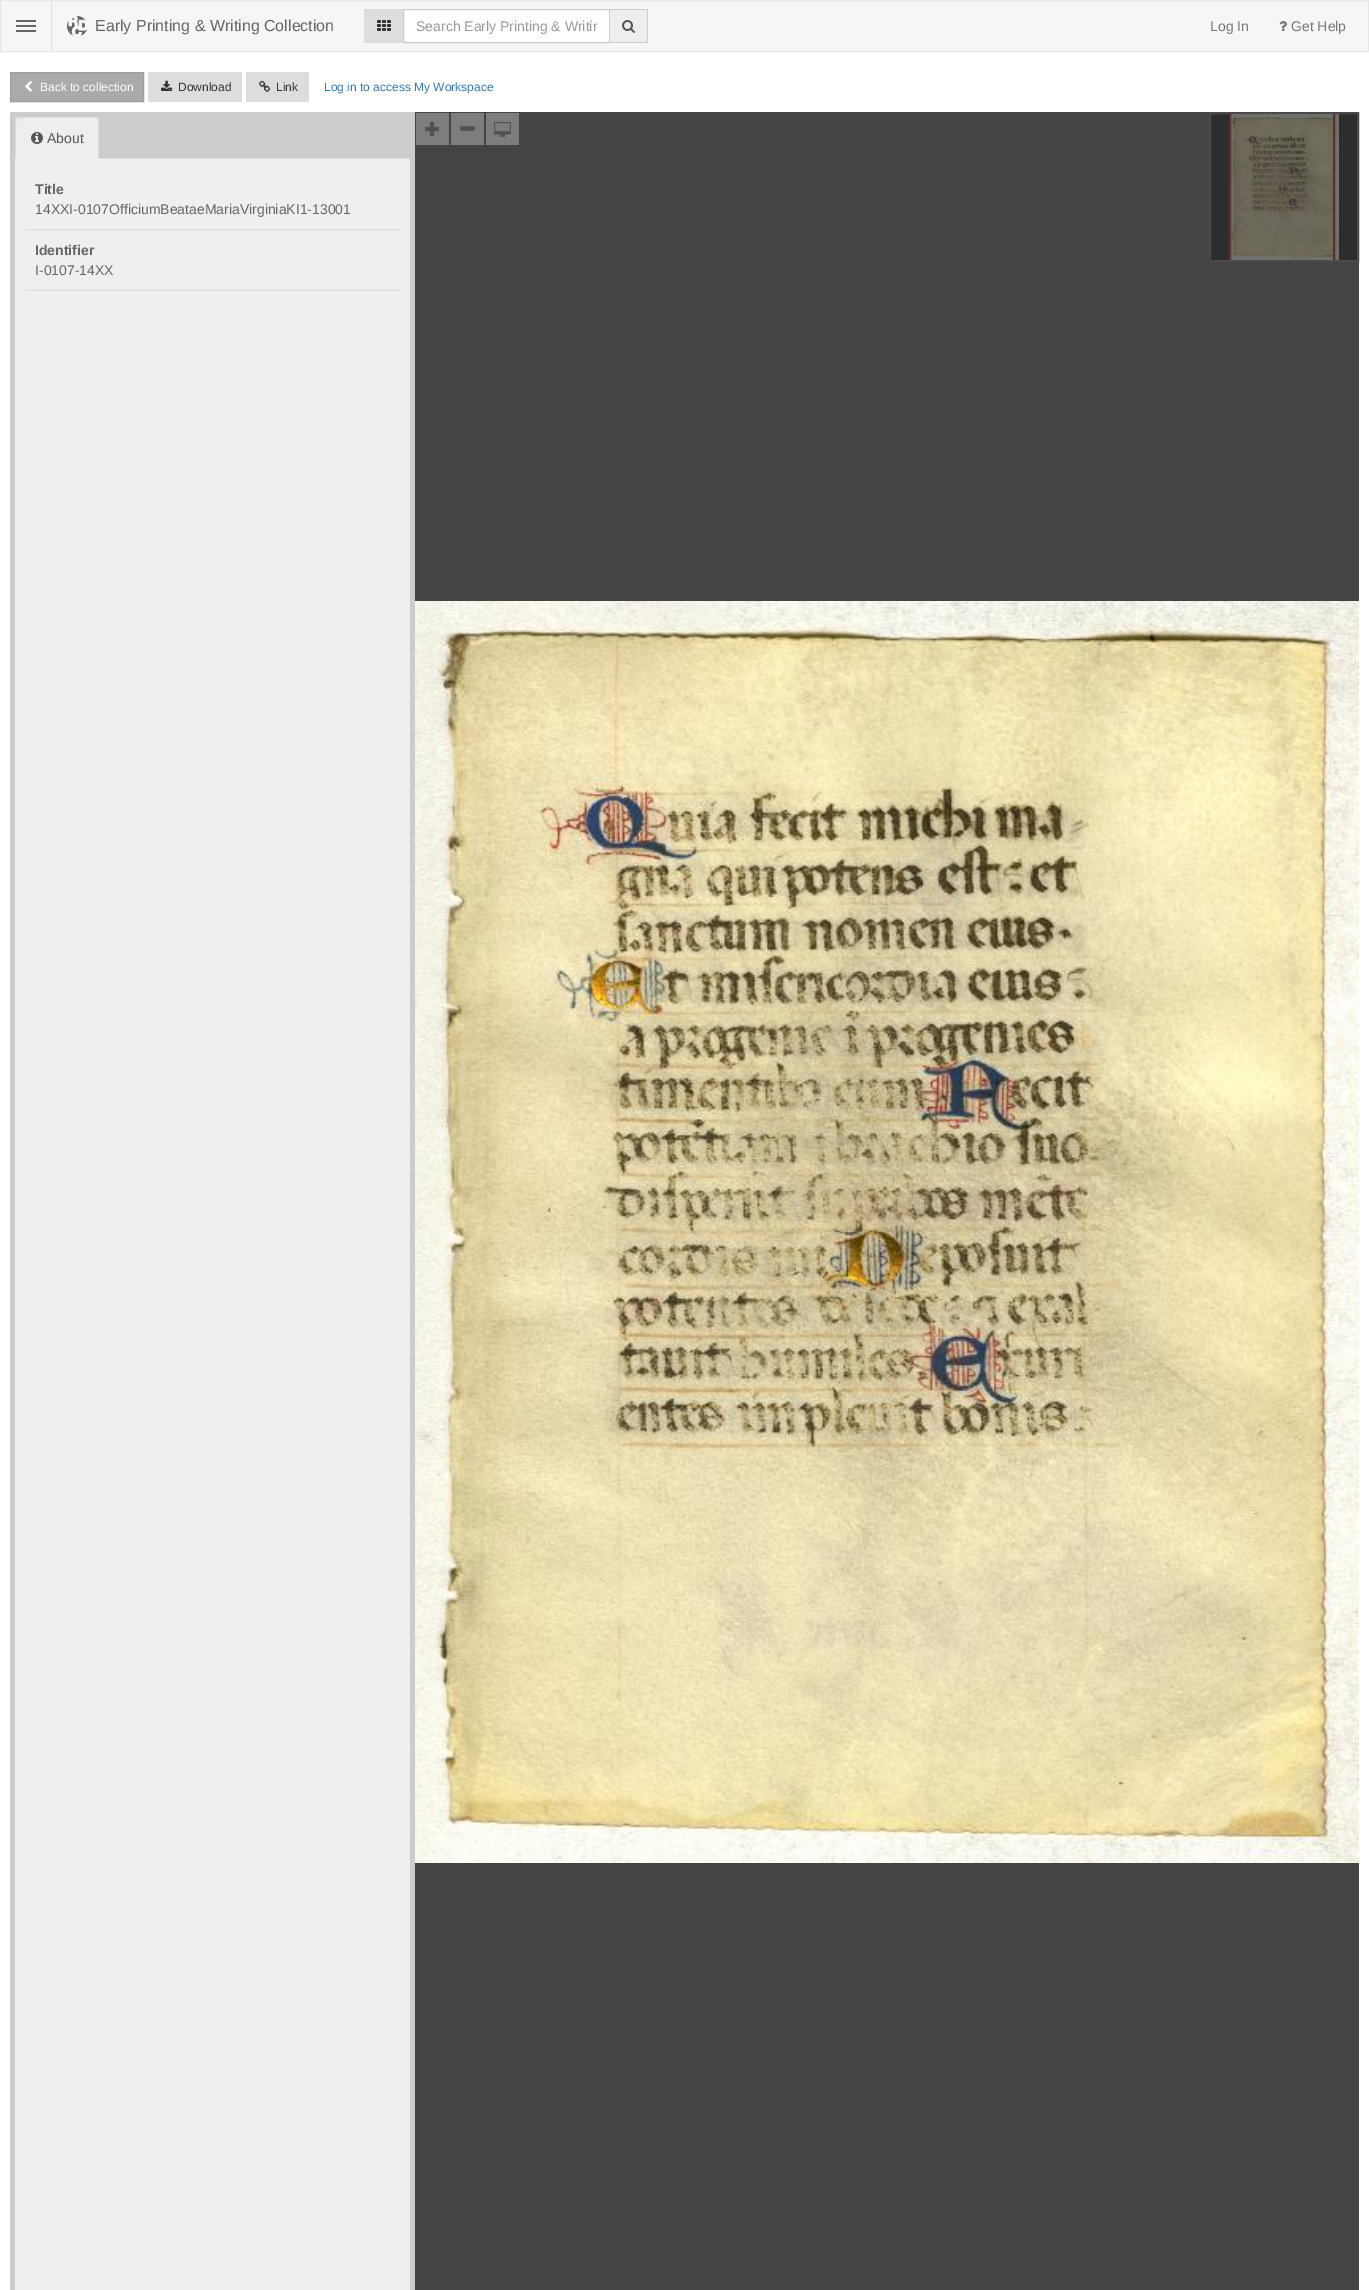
%!PS-Adobe-3.0
%%BoundingBox: 0 0 1369 2290
%%LanguageLevel: 3
%%Pages: 1
%%EndComments
%%BeginProlog
/drawimage { 5 dict begin { /h /w /y /x /name } { exch def } forall
  gsave x y translate w h scale
  w h 8 [w 0 0 h 0 0] name (r) file false 3 colorimage grestore end } def
%%EndProlog
%%BeginSetup
<< /PageSize [1369 2290] >> setpagedevice
%%EndSetup
%%Page: 1 1
0 2290 translate 1 -1 scale
4 setmiterlimit
1 setgray
0 0 1369 2290 rectfill
0.965 setgray
newpath 0.5 0.5 moveto 1368.5 0.5 lineto 1368.5 51.5 lineto 0.5 51.5 lineto closepath gsave fill grestore
0.906 setgray
stroke
0.4 setgray
16 20 20 2 rectfill
16 25 20 2 rectfill
16 30 20 2 rectfill
(images/1.raw) 67 16 20 20 drawimage
0.867 setgray
51 1 1 50 rectfill
364 9 39 34 rectfill
(images/2.raw) 377 20 14 11 drawimage
1 setgray
newpath 403.5 9.5 moveto 609.5 9.5 lineto 609.5 42.5 lineto 403.5 42.5 lineto closepath gsave fill grestore
0.8 setgray
stroke
0.933 setgray
610 10 37 32 rectfill
0.8 setgray
610 9 38 1 rectfill
647 9 1 34 rectfill
610 42 38 1 rectfill
(images/3.raw) 622 20 13 13 drawimage
(images/4.raw) 1279 21 8 10 drawimage
0.667 setgray
newpath 10.5 72.5 moveto 143.5 72.5 lineto 143.5 101.5 lineto 10.5 101.5 lineto closepath gsave fill grestore
0.616 setgray
stroke
(images/5.raw) 25 81 7 11 drawimage
0.867 setgray
148 72 94 30 rectfill
(images/6.raw) 161 80 12 11 drawimage
246 72 63 30 rectfill
(images/7.raw) 259 80 11 12 drawimage
0.8 setgray
10 112 405 2178 rectfill
0.867 setgray
99 158 311 1 rectfill
0.933 setgray
newpath 19 117 moveto 95 117 lineto 97 117 99 119 99 121 curveto 99 159 lineto 15 159 lineto 15 121 lineto 15 119 17 117 19 117 curveto closepath fill
0.867 setgray
newpath 19 117 moveto 16 118 lineto 17 119 lineto 19 117 75 118 82 118 curveto 95 118 lineto 97 119 lineto 98 118 lineto 95 117 lineto closepath fill
newpath 99 159 moveto 99 121 lineto 99 120 98 119 98 118 curveto 97 119 lineto 99 121 98 153 98 158 curveto closepath fill
newpath 15 159 moveto 16 158 lineto 16 153 15 121 17 119 curveto 16 118 lineto 15 121 lineto closepath fill
(images/8.raw) 31 132 12 12 drawimage
0.937 setgray
15 159 395 2131 rectfill
0.867 setgray
25 229 375 1 rectfill
25 290 375 1 rectfill
0.267 setgray
415 112 944 2178 rectfill
(images/9.raw) 416 113 33 32 drawimage
(images/10.raw) 451 113 33 32 drawimage
(images/11.raw) 486 113 33 32 drawimage
0.176 setgray
newpath 1210 113 moveto 1358 113 lineto 1358 261 lineto 1210 261 lineto closepath gsave fill grestore
0.29 setgray
2 setlinewidth
stroke
(images/12.raw) 1231 114 108 146 drawimage
gsave
1211 114 146 146 rectclip
0.38 0.176 0.176 setrgbcolor
1230 59 104 254 rectstroke
grestore
(images/13.raw) 415 601 944 1262 drawimage
/LiberationSans-Regular [16 0 0 -16 0 0] selectfont
0.4 setgray
95 31 moveto (Early Printing & Writing Collection) show
gsave
416 18 181 16 rectclip
/LiberationSans-Regular [14 0 0 -14 0 0] selectfont
0.6 setgray
416 31 moveto (Search Early Printing & Writin) show
grestore
/LiberationSans-Regular [14 0 0 -14 0 0] selectfont
0.467 setgray
1210 31 moveto (Log In) show
1291 31 moveto (Get Help) show
/LiberationSans-Regular [12 0 0 -12 0 0] selectfont
1 setgray
40 91 moveto (Back to collection) show
0.2 setgray
178 91 moveto (Download) show
276 91 moveto (Link) show
0.2 0.478 0.718 setrgbcolor
324 91 moveto (Log in to access My Workspace) show
/LiberationSans-Regular [14 0 0 -14 0 0] selectfont
0.333 setgray
47 143 moveto (About) show
/LiberationSans-Bold [14 0 0 -14 0 0] selectfont
0.4 setgray
35 194 moveto (Title) show
/LiberationSans-Regular [14 0 0 -14 0 0] selectfont
35 214 moveto (14XXI-0107OfficiumBeataeMariaVirginiaKI1-13001) show
/LiberationSans-Bold [14 0 0 -14 0 0] selectfont
35 255 moveto (Identifier) show
/LiberationSans-Regular [14 0 0 -14 0 0] selectfont
35 275 moveto (I-0107-14XX) show
showpage
%%EOF
